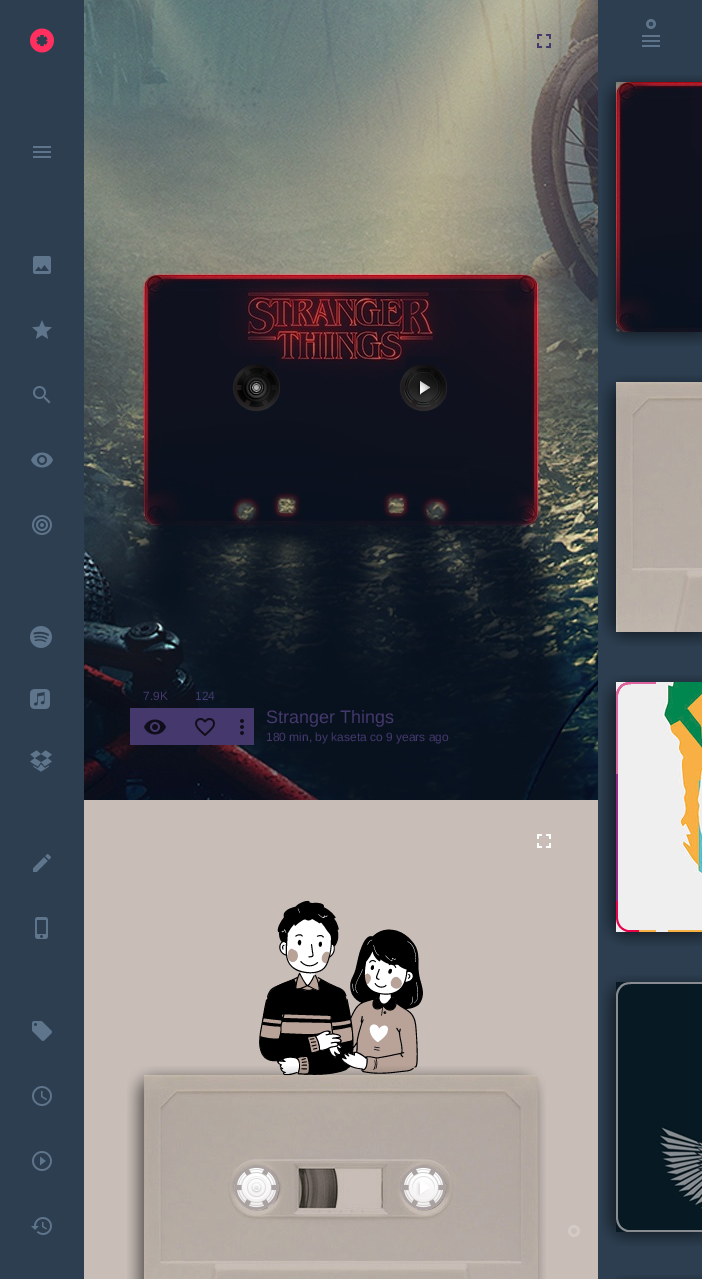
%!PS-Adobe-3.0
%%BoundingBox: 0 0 702 1279
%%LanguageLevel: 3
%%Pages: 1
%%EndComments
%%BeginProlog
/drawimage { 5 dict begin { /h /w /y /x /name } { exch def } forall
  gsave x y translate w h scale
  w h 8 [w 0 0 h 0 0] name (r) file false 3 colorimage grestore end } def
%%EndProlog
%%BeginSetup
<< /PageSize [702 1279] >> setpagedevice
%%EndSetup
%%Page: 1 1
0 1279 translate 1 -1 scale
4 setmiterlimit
0.173 0.243 0.314 setrgbcolor
0 0 702 1279 rectfill
(images/1.raw) 30 28 24 25 drawimage
(images/2.raw) 33 146 18 12 drawimage
(images/3.raw) 33 256 18 18 drawimage
(images/4.raw) 32 320 20 19 drawimage
(images/5.raw) 33 386 18 18 drawimage
(images/6.raw) 31 452 22 16 drawimage
(images/7.raw) 32 515 20 20 drawimage
(images/8.raw) 30 626 22 22 drawimage
(images/9.raw) 30 689 20 20 drawimage
(images/10.raw) 30 750 22 22 drawimage
(images/11.raw) 33 854 18 18 drawimage
(images/12.raw) 35 917 13 22 drawimage
(images/13.raw) 32 1021 20 20 drawimage
(images/14.raw) 32 1086 20 20 drawimage
(images/15.raw) 32 1151 20 20 drawimage
(images/16.raw) 31 1217 21 18 drawimage
(images/18.raw) 84 0 514 800 drawimage
(images/17.raw) 568 38 12 8 drawimage
(images/19.raw) 144 275 394 250 drawimage
(images/22.raw) 234 366 45 44 drawimage
(images/21.raw) 234 365 45 45 drawimage
(images/20.raw) 233 365 47 46 drawimage
(images/25.raw) 402 367 41 41 drawimage
(images/24.raw) 401 365 45 45 drawimage
(images/23.raw) 400 365 47 46 drawimage
(images/26.raw) 537 34 14 14 drawimage
0.267 0.22 0.424 setrgbcolor
130 708 124 36 rectfill
(images/27.raw) 144 719 22 16 drawimage
(images/28.raw) 195 718 20 19 drawimage
(images/29.raw) 240 719 4 16 drawimage
130 744 124 1 rectfill
(images/30.raw) 84 800 514 479 drawimage
(images/31.raw) 537 834 14 14 drawimage
(images/32.raw) 127 1066 419 213 drawimage
(images/33.raw) 144 1075 394 204 drawimage
(images/35.raw) 234 1166 45 44 drawimage
(images/34.raw) 234 1165 45 45 drawimage
(images/37.raw) 401 1166 45 44 drawimage
(images/36.raw) 401 1165 45 45 drawimage
0.827 0.792 0.773 setrgbcolor
3 setlinewidth
newpath 574 1231 4.5 0 360 arc closepath stroke
(images/38.raw) 646 19 10 10 drawimage
(images/2.raw) 642 35 18 12 drawimage
(images/39.raw) 601 75 101 271 drawimage
(images/40.raw) 616 82 86 250 drawimage
(images/39.raw) 601 375 101 271 drawimage
(images/41.raw) 616 382 86 250 drawimage
(images/39.raw) 601 675 101 271 drawimage
(images/42.raw) 616 682 86 250 drawimage
(images/39.raw) 601 975 101 271 drawimage
(images/43.raw) 616 982 86 250 drawimage
(images/44.raw) 616 1275 86 4 drawimage
/LiberationSans-Regular [12 0 0 -12 0 0] selectfont
0.267 0.22 0.424 setrgbcolor
143 700 moveto (7.9K) show
195 700 moveto (124) show
/LiberationSans-Regular [18 0 0 -18 0 0] selectfont
266 723 moveto (Stranger Things) show
/LiberationSans-Regular [12 0 0 -12 0 0] selectfont
266 741 moveto (180 min, by kaseta co 9 years ago) show
showpage
%%EOF
